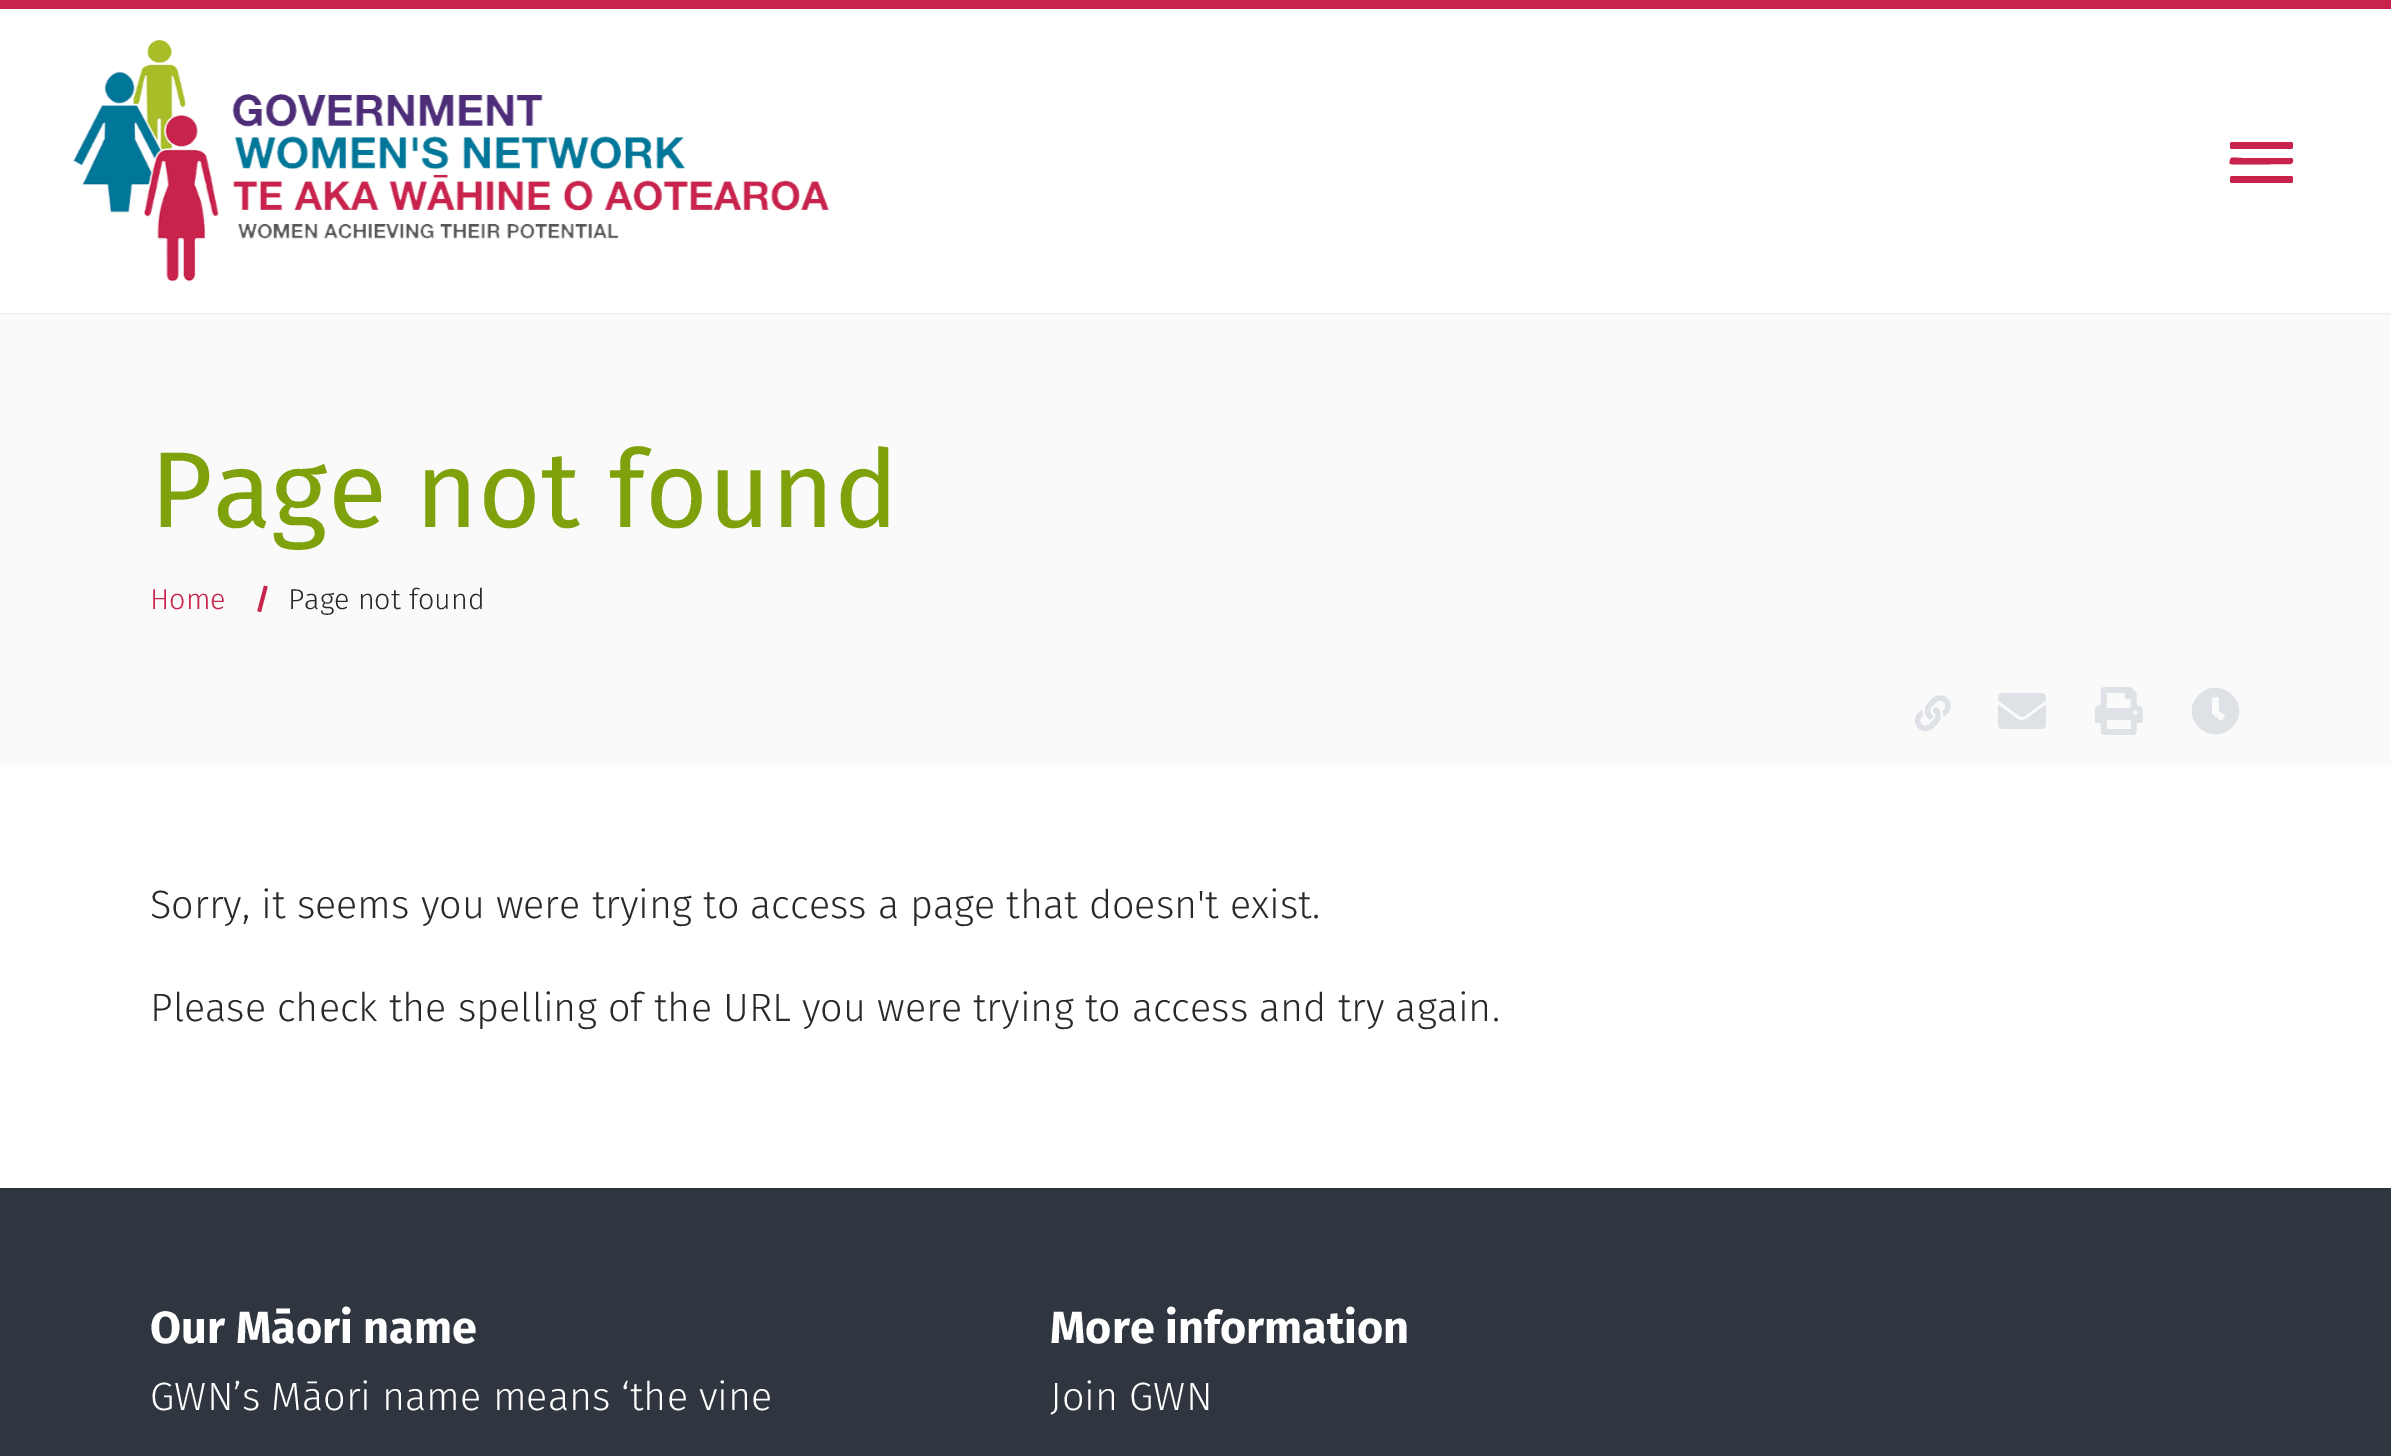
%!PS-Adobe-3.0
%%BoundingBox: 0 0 2391 1456
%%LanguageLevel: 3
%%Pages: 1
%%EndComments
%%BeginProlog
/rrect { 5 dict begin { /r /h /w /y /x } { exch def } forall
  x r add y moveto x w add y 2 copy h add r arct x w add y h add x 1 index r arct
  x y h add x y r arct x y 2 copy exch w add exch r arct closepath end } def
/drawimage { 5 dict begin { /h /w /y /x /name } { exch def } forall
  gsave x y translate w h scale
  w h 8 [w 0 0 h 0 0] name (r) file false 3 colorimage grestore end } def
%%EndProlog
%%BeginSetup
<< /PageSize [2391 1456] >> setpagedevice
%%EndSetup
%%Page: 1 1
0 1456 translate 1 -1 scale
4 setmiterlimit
1 setgray
0 0 2391 1456 rectfill
0.78 0.137 0.298 setrgbcolor
0 0 2391 9 rectfill
0.945 setgray
0 313 2391 2 rectfill
(images/1.raw) 73 40 757 242 drawimage
0.78 0.137 0.298 setrgbcolor
2230 142 63 7 2 rrect fill
newpath 2290 164 moveto 2284 164 2232 165 2230 164 curveto 2229 163 2230 161 2230 160 curveto 2230 156 2237 158 2242 158 curveto 2291 158 lineto 2292 158 lineto 2294 160 2293 164 2290 164 curveto closepath fill
2230 176 63 7 2 rrect fill
0.98 setgray
0 315 2391 450 rectfill
(images/2.raw) 1914 695 37 37 drawimage
(images/3.raw) 1998 693 48 36 drawimage
(images/4.raw) 2094 687 49 48 drawimage
0.871 0.886 0.902 setrgbcolor
newpath 2199 695 moveto 2221 673 2254 706 2232 727 curveto 2210 749 2177 716 2199 695 curveto closepath 2221 721 moveto 2222 721 2223 720 2223 719 curveto 2225 716 2226 716 2224 714 curveto 2219 711 lineto 2219 702 lineto 2219 698 2220 697 2216 697 curveto 2210 697 2212 698 2212 706 curveto 2212 714 lineto closepath fill
0.184 0.212 0.247 setrgbcolor
0 1190 2391 266 rectfill
0.176 0.2 0.235 setrgbcolor
0 1188 2391 2 rectfill
/FiraSans-Regular [108 0 0 -108 0 0] selectfont
0.498 0.635 0.047 setrgbcolor
150 527 moveto (Page not found) show
/FiraSans-Light [28.75 0 0 -28.75 0 0] selectfont
0.78 0.137 0.298 setrgbcolor
150 609 moveto (Home) show
/FiraSans-Bold [28.75 0 0 -28.75 0 0] selectfont
255 609 moveto (/) show
/FiraSans-Light [28.75 0 0 -28.75 0 0] selectfont
0.165 0.157 0.176 setrgbcolor
288 609 moveto (Page not found) show
/FiraSans-Light [39.6 0 0 -39.6 0 0] selectfont
150 918 moveto (Sorry, it seems you were trying to access a page that doesn't exist.) show
150 1021 moveto (Please check the spelling of the URL you were trying to access and try again.) show
/FiraSans-Bold [45 0 0 -45 0 0] selectfont
1 setgray
150 1343 moveto (Our Māori name) show
/FiraSans-Light [39.6 0 0 -39.6 0 0] selectfont
150 1410 moveto (GWN’s Māori name means ‘the vine) show
/FiraSans-Bold [45 0 0 -45 0 0] selectfont
1050 1343 moveto (More information) show
/FiraSans-Light [39.6 0 0 -39.6 0 0] selectfont
1050 1410 moveto (Join GWN) show
showpage
%%EOF
